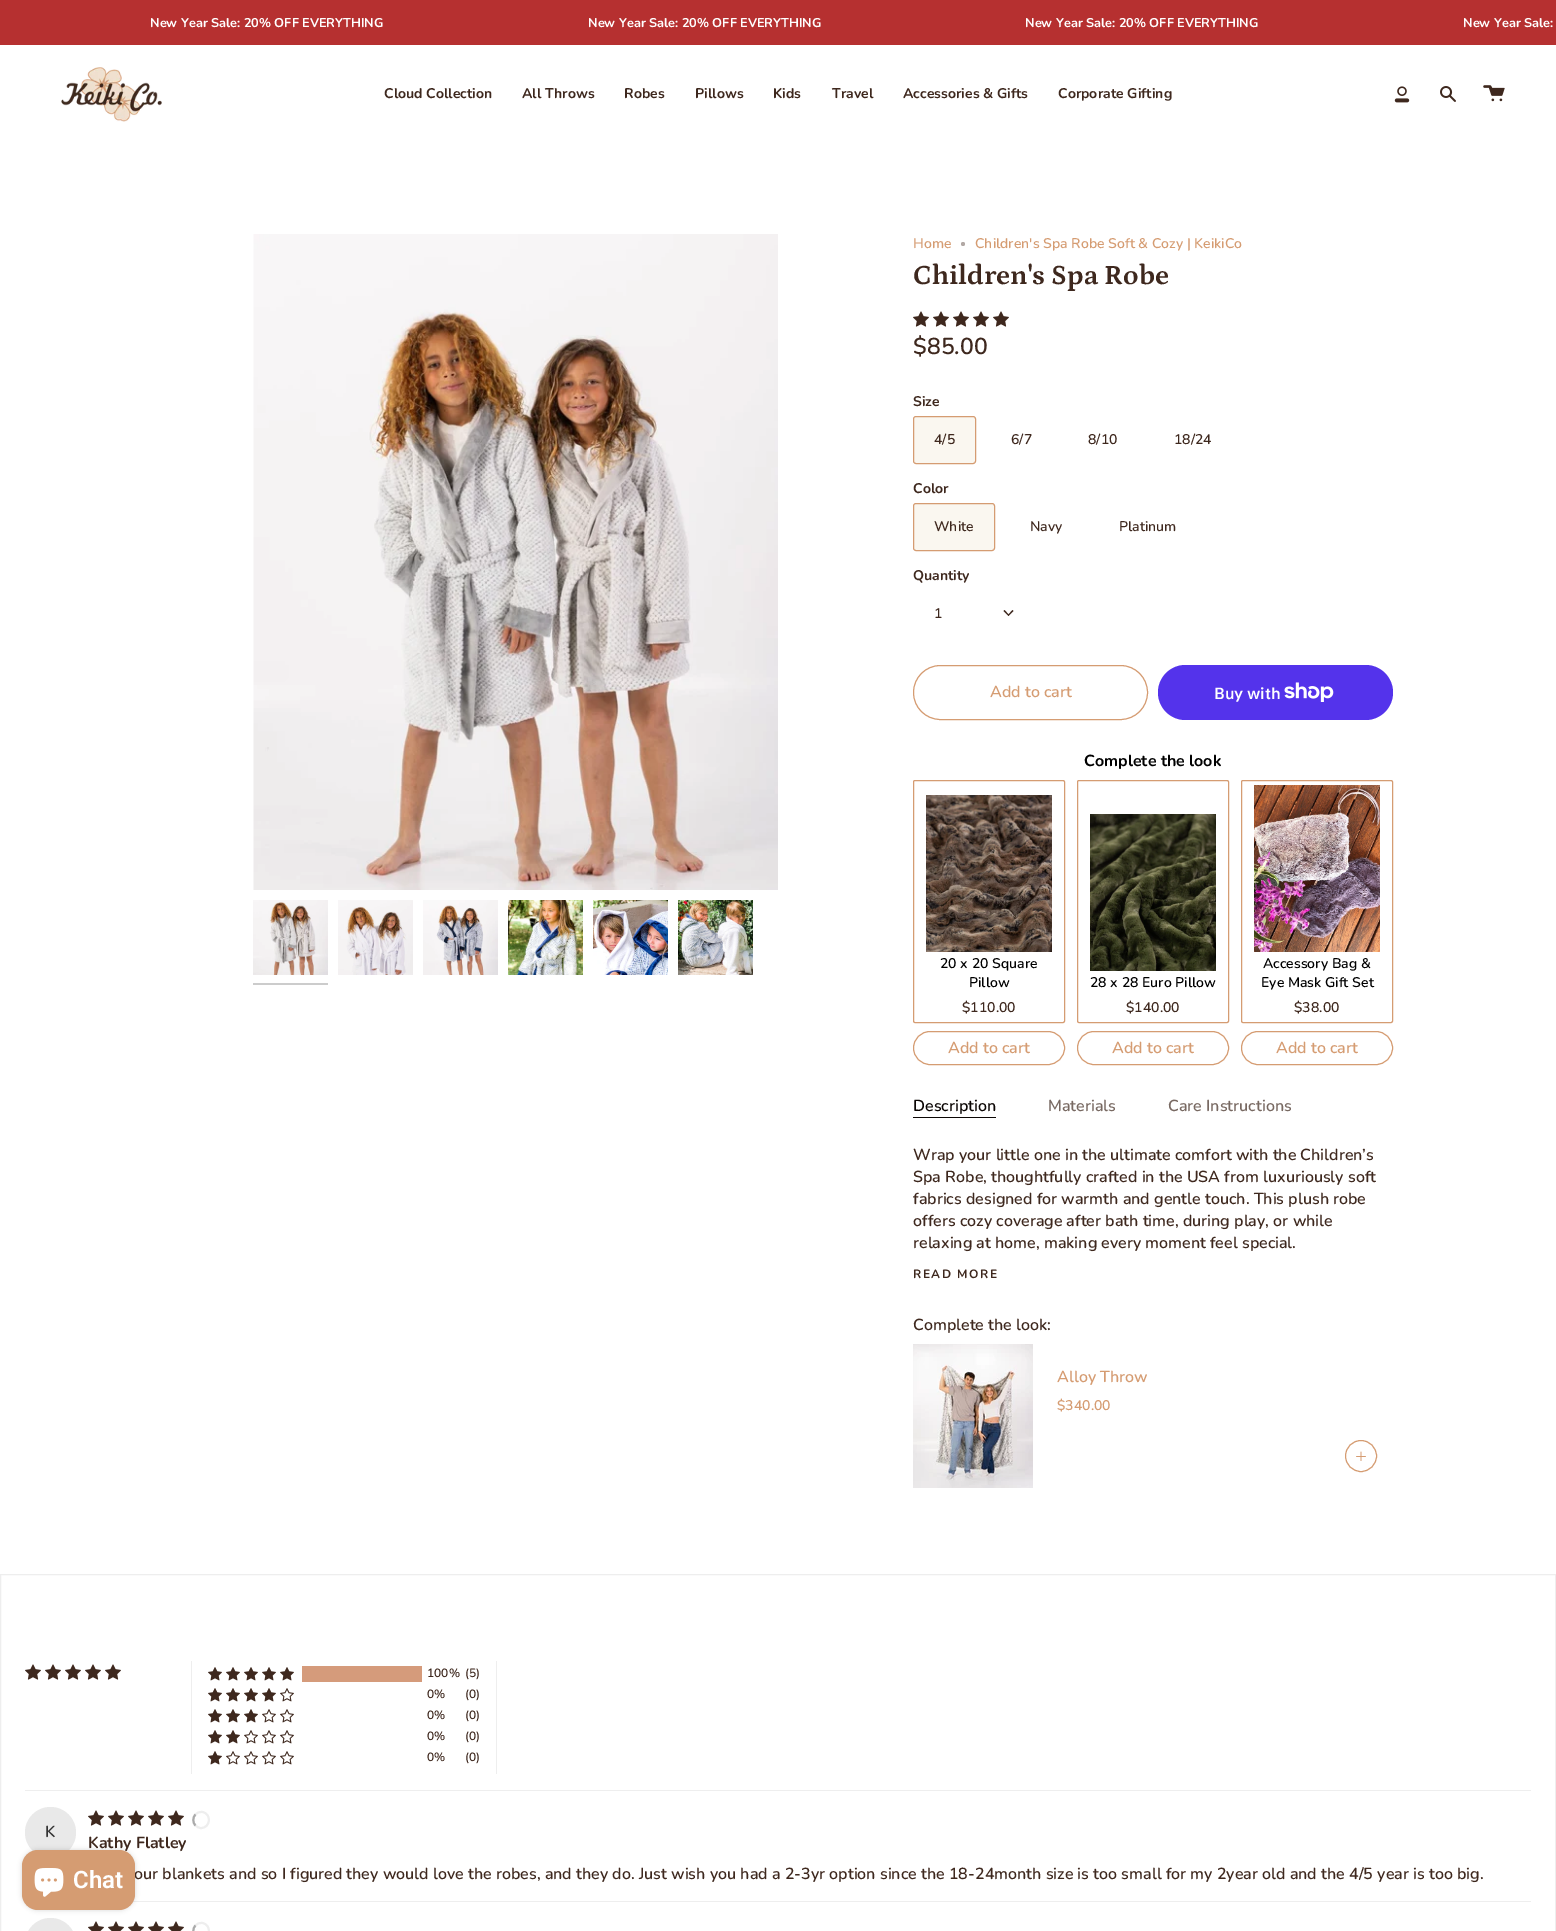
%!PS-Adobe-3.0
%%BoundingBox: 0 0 1556 1931
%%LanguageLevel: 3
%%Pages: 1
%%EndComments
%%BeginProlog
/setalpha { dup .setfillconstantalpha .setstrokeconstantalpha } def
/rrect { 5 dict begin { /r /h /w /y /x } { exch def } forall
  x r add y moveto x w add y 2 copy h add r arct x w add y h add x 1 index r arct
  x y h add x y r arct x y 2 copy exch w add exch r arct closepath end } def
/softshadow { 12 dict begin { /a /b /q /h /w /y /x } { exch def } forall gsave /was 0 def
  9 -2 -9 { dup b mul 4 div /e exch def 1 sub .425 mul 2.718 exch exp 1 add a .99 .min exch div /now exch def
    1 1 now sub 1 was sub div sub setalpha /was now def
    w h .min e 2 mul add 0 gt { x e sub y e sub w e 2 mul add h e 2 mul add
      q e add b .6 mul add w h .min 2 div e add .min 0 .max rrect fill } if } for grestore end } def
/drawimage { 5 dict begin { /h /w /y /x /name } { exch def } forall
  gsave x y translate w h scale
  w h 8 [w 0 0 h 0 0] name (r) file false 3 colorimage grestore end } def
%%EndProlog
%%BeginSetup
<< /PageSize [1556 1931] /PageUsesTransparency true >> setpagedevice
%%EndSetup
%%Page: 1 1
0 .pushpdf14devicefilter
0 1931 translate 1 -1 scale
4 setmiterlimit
1 setgray
0 0 1556 1931 rectfill
0.714 0.188 0.188 setrgbcolor
0 0 1556 45 rectfill
(images/1.raw) 61 67 101 55 drawimage
(images/2.raw) 1394 86 16 17 drawimage
(images/3.raw) 1440 86 16 16 drawimage
(images/4.raw) 1483 85 22 17 drawimage
(images/5.raw) 253 234 525 656 drawimage
(images/6.raw) 253 900 75 75 drawimage
0.8 setgray
253 983 75 2 rectfill
(images/7.raw) 338 900 75 75 drawimage
(images/8.raw) 423 900 75 75 drawimage
(images/9.raw) 508 900 75 75 drawimage
(images/10.raw) 593 900 75 75 drawimage
(images/11.raw) 678 900 75 75 drawimage
0.698 0.663 0.647 setrgbcolor
newpath 963 244 2 0 360 arc closepath fill
(images/12.raw) 913 311 16 16 drawimage
(images/12.raw) 933 311 16 16 drawimage
(images/12.raw) 953 311 16 16 drawimage
(images/12.raw) 973 311 16 16 drawimage
(images/12.raw) 993 311 16 16 drawimage
0.98 0.969 0.941 setrgbcolor
913.5 416.5 62 47 2.5 rrect gsave fill grestore
0.835 0.612 0.447 setrgbcolor
stroke
0.98 0.969 0.941 setrgbcolor
913.5 503.5 81 47 2.5 rrect gsave fill grestore
0.835 0.612 0.447 setrgbcolor
stroke
0.243 0.157 0.118 setrgbcolor
newpath 1008 615 moveto 1012.5 610 lineto 1013.5 611 lineto 1008.5 616 lineto closepath fill
newpath 1003.5 611 moveto 1004.5 610 lineto 1009 615 lineto 1008.5 616 lineto closepath fill
0.835 0.612 0.447 setrgbcolor
913.5 665.5 234 54 27 rrect stroke
0.329 0.2 0.922 setrgbcolor
1158 665 235 55 27.5 rrect fill
(images/13.raw) 1284 682 50 20 drawimage
0.835 0.612 0.447 setrgbcolor
913.5 780.5 151 242 1.5 rrect stroke
(images/14.raw) 926 795 126 157 drawimage
913.5 1031.5 151 33 16.5 rrect stroke
1077.5 780.5 151 242 1.5 rrect stroke
(images/15.raw) 1090 814 126 157 drawimage
1077.5 1031.5 151 33 16.5 rrect stroke
1241.5 780.5 151 242 1.5 rrect stroke
(images/16.raw) 1254 785 126 167 drawimage
1241.5 1031.5 151 33 16.5 rrect stroke
0.043 0.024 0.016 setrgbcolor
913 1117 83 1 rectfill
(images/17.raw) 913 1344 120 144 drawimage
0.835 0.612 0.447 setrgbcolor
newpath 1361 1456 15.5 0 360 arc closepath stroke
(images/18.raw) 1356 1451 10 10 drawimage
0.933 setgray
0.5 1574.5 1555 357 rectstroke
(images/12.raw) 25 1664 16 16 drawimage
(images/12.raw) 45 1664 16 16 drawimage
(images/12.raw) 65 1664 16 16 drawimage
(images/12.raw) 85 1664 16 16 drawimage
(images/12.raw) 105 1664 16 16 drawimage
496 1661 1 113 rectfill
191 1661 1 113 rectfill
(images/19.raw) 208 1667 14 14 drawimage
(images/19.raw) 226 1667 14 14 drawimage
(images/19.raw) 244 1667 14 14 drawimage
(images/19.raw) 262 1667 14 14 drawimage
(images/19.raw) 280 1667 14 14 drawimage
0.835 0.608 0.482 setrgbcolor
302 1666 120 16 rectfill
(images/19.raw) 208 1688 14 14 drawimage
(images/19.raw) 226 1688 14 14 drawimage
(images/19.raw) 244 1688 14 14 drawimage
(images/19.raw) 262 1688 14 14 drawimage
(images/20.raw) 280 1688 14 14 drawimage
(images/19.raw) 208 1709 14 14 drawimage
(images/19.raw) 226 1709 14 14 drawimage
(images/19.raw) 244 1709 14 14 drawimage
(images/20.raw) 262 1709 14 14 drawimage
(images/20.raw) 280 1709 14 14 drawimage
(images/19.raw) 208 1730 14 14 drawimage
(images/19.raw) 226 1730 14 14 drawimage
(images/20.raw) 244 1730 14 14 drawimage
(images/20.raw) 262 1730 14 14 drawimage
(images/20.raw) 280 1730 14 14 drawimage
(images/19.raw) 208 1751 14 14 drawimage
(images/20.raw) 226 1751 14 14 drawimage
(images/20.raw) 244 1751 14 14 drawimage
(images/20.raw) 262 1751 14 14 drawimage
(images/20.raw) 280 1751 14 14 drawimage
0.933 setgray
25 1790 1506 1 rectfill
(images/12.raw) 88 1810 16 16 drawimage
(images/12.raw) 108 1810 16 16 drawimage
(images/12.raw) 128 1810 16 16 drawimage
(images/12.raw) 148 1810 16 16 drawimage
(images/12.raw) 168 1810 16 16 drawimage
2 setlinewidth
newpath 195.5 1814.5 moveto 197 1812.5 200 1811.5 202.5 1812 curveto 212 1814 210.5 1828 201 1828 curveto 199 1828 197 1827 195.5 1825.5 curveto stroke
0.667 setgray
newpath 195.5 1825.5 moveto 192.5 1822.5 192.5 1817.5 195.5 1814.5 curveto stroke
0.914 setgray
newpath 50.5 1832.5 25.5 0 360 arc closepath fill
0.933 setgray
132 1901 1399 1 rectfill
0.914 setgray
25 1918 51 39 25.5 rrect fill
(images/21.raw) 88 1921 16 10 drawimage
(images/21.raw) 108 1921 16 10 drawimage
(images/21.raw) 128 1921 16 10 drawimage
(images/21.raw) 148 1921 16 10 drawimage
(images/21.raw) 168 1921 16 10 drawimage
0.933 setgray
newpath 195.5 1925.5 moveto 197 1923.5 200 1922.5 202.5 1923 curveto 212 1925 210.5 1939 201 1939 curveto 199 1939 197 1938 195.5 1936.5 curveto stroke
0.667 setgray
newpath 195.5 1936.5 moveto 192.5 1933.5 192.5 1928.5 195.5 1925.5 curveto stroke
0 setgray
22 1850 113 60 16 2.5 0.15 softshadow
/Nunito-Bold [12.75 0 0 -12.75 0 0] selectfont
1 setgray
150 27 moveto (New Year Sale: 20% OFF EVERYTHING) show
588 27 moveto (New Year Sale: 20% OFF EVERYTHING) show
1025 27 moveto (New Year Sale: 20% OFF EVERYTHING) show
1463 27 moveto (New Year Sale:) show
/Nunito-Bold [14 0 0 -14 0 0] selectfont
0.243 0.157 0.118 setrgbcolor
384 98 moveto (Cloud Collection) show
522 98 moveto (All Throws) show
624 98 moveto (Robes) show
695 98 moveto (Pillows) show
773 98 moveto (Kids) show
832 98 moveto (Travel) show
903 98 moveto (Accessories & Gifts) show
1058 98 moveto (Corporate Gifting) show
/Nunito-SemiBold [14 0 0 -14 0 0] selectfont
0.835 0.612 0.447 setrgbcolor
913 248 moveto (Home) show
975 248 moveto (Children's Spa Robe Soft & Cozy | KeikiCo) show
/Petrona-Bold [28 0 0 -28 0 0] selectfont
0.243 0.157 0.118 setrgbcolor
913 284 moveto (Children's Spa Robe) show
/Nunito-SemiBold [23 0 0 -23 0 0] selectfont
913 354 moveto ($85.00) show
/Nunito-Bold [14 0 0 -14 0 0] selectfont
913 406 moveto (Size) show
/Nunito-SemiBold [14 0 0 -14 0 0] selectfont
934 444 moveto (4/5) show
1011 444 moveto (6/7) show
1088 444 moveto (8/10) show
1174 444 moveto (18/24) show
/Nunito-Bold [14 0 0 -14 0 0] selectfont
913 493 moveto (Color) show
/Nunito-SemiBold [14 0 0 -14 0 0] selectfont
934 531 moveto (White) show
1030 531 moveto (Navy) show
1119 531 moveto (Platinum) show
/Nunito-Bold [14 0 0 -14 0 0] selectfont
913 580 moveto (Quantity) show
/Nunito-SemiBold [14 0 0 -14 0 0] selectfont
934 618 moveto (1) show
/Nunito-SemiBold [16 0 0 -16 0 0] selectfont
0.835 0.612 0.447 setrgbcolor
990 697 moveto (Add to cart) show
/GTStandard-SemiBold [16 0 0 -16 0 0] selectfont
1 setgray
1214 699 moveto (Buy with) show
/Nunito-Bold [16 0 0 -16 0 0] selectfont
0 setgray
1084 766 moveto (Complete the look) show
/Nunito-SemiBold [14 0 0 -14 0 0] selectfont
940 968 moveto (20 x 20 Square) show
969 987 moveto (Pillow) show
0.243 0.157 0.118 setrgbcolor
962 1012 moveto ($110.00) show
/Nunito-SemiBold [16 0 0 -16 0 0] selectfont
0.835 0.612 0.447 setrgbcolor
948 1053 moveto (Add to cart) show
/Nunito-SemiBold [14 0 0 -14 0 0] selectfont
0 setgray
1090 987 moveto (28 x 28 Euro Pillow) show
0.243 0.157 0.118 setrgbcolor
1126 1012 moveto ($140.00) show
/Nunito-SemiBold [16 0 0 -16 0 0] selectfont
0.835 0.612 0.447 setrgbcolor
1112 1053 moveto (Add to cart) show
/Nunito-SemiBold [14 0 0 -14 0 0] selectfont
0 setgray
1263 968 moveto (Accessory Bag &) show
1261 987 moveto (Eye Mask Gift Set) show
0.243 0.157 0.118 setrgbcolor
1294 1012 moveto ($38.00) show
/Nunito-SemiBold [16 0 0 -16 0 0] selectfont
0.835 0.612 0.447 setrgbcolor
1276 1053 moveto (Add to cart) show
0.043 0.024 0.016 setrgbcolor
913 1111 moveto (Description) show
0.471 0.412 0.384 setrgbcolor
1048 1111 moveto (Materials) show
1168 1111 moveto (Care Instructions) show
0.243 0.157 0.118 setrgbcolor
913 1160 moveto (Wrap your little one in the ultimate comfort with the Children’s) show
913 1182 moveto (Spa Robe, thoughtfully crafted in the USA from luxuriously soft) show
913 1204 moveto (fabrics designed for warmth and gentle touch. This plush robe) show
913 1226 moveto (offers cozy coverage after bath time, during play, or while) show
913 1248 moveto (relaxing at home, making every moment feel special.) show
/Nunito-Bold [12 0 0 -12 0 0] selectfont
913 1278 moveto 1.5 0 (READ MORE) ashow
/Nunito-SemiBold [16 0 0 -16 0 0] selectfont
913 1330 moveto (Complete the look:) show
0.835 0.612 0.447 setrgbcolor
1057 1382 moveto (Alloy Throw) show
/Nunito-SemiBold [14 0 0 -14 0 0] selectfont
1057 1410 moveto ($340.00) show
/Nunito-SemiBold [12 0 0 -12 0 0] selectfont
0.243 0.157 0.118 setrgbcolor
427 1677 moveto (100%) show
465 1677 moveto (\(5\)) show
427 1698 moveto (0%) show
465 1698 moveto (\(0\)) show
427 1719 moveto (0%) show
465 1719 moveto (\(0\)) show
427 1740 moveto (0%) show
465 1740 moveto (\(0\)) show
427 1761 moveto (0%) show
465 1761 moveto (\(0\)) show
/Nunito-SemiBold [16 0 0 -16 0 0] selectfont
0.2 setgray
45 1837 moveto (K) show
/Nunito-Bold [16 0 0 -16 0 0] selectfont
0.243 0.157 0.118 setrgbcolor
88 1848 moveto (Kathy Flatley) show
/Nunito-SemiBold [16 0 0 -16 0 0] selectfont
134 1879 moveto (our blankets and so I figured they would love the robes, and they do. Just wish you had a 2-3yr option since the 18-24month size is too small for my 2year old and the 4/5 year is too big.) show
0.835 0.612 0.447 setrgbcolor
22 1850 113 60 16 rrect fill
(images/22.raw) 34 1868 30 29 drawimage
/Roboto-SemiBold [24 0 0 -24 0 0] selectfont
1 setgray
73 1888 moveto (Chat) show
.poppdf14devicefilter showpage
%%EOF
